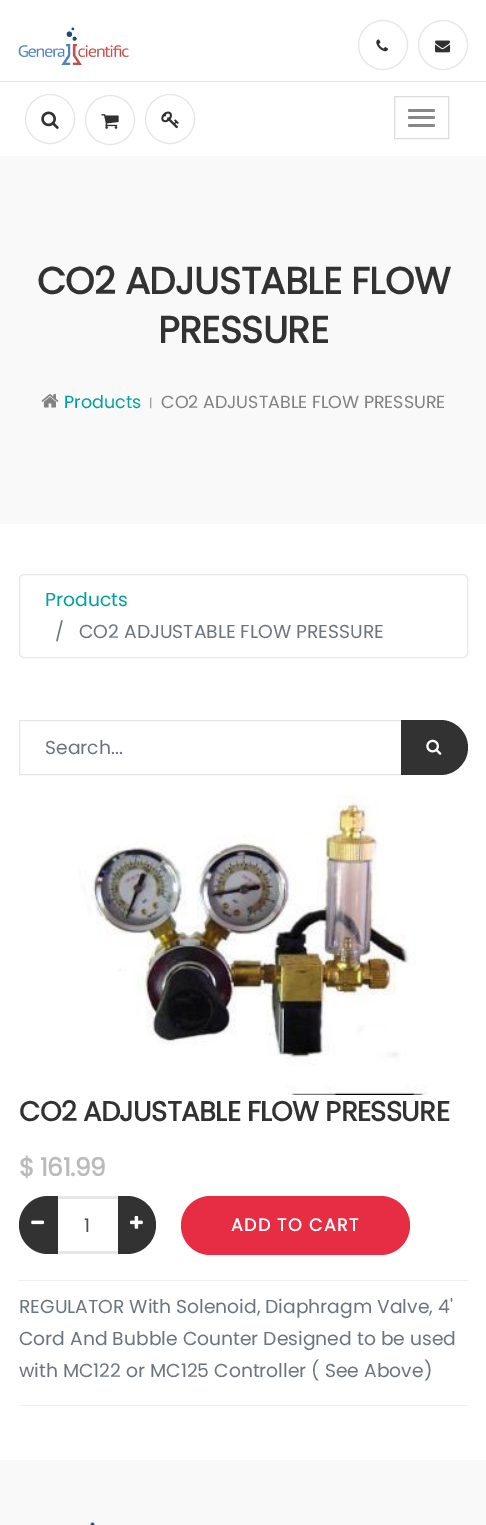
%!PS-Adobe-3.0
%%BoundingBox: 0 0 486 1525
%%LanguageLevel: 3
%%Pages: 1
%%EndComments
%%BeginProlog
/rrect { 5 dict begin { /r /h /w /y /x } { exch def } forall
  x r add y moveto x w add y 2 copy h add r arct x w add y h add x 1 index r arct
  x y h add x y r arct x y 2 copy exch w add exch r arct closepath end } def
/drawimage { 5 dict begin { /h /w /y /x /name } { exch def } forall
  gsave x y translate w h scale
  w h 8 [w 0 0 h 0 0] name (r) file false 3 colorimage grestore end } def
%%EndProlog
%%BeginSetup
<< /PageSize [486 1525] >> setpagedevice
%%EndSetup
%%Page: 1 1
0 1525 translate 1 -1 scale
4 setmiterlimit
1 setgray
0 0 486 1525 rectfill
0.902 setgray
newpath 383 45 24.5 0 360 arc closepath stroke
(images/1.raw) 376 39 12 13 drawimage
newpath 443 45 24.5 0 360 arc closepath stroke
(images/2.raw) 435 40 15 13 drawimage
(images/3.raw) 18 27 111 38 drawimage
newpath 50 119 24.5 0 360 arc closepath stroke
(images/4.raw) 41 111 18 18 drawimage
newpath 110 120 24.5 0 360 arc closepath stroke
(images/5.raw) 101 114 18 15 drawimage
newpath 170 119 24.5 0 360 arc closepath stroke
(images/6.raw) 161 111 18 18 drawimage
0.867 setgray
394.5 96.5 54 42 rectstroke
0.533 setgray
408 109 27 3 1.5 rrect fill
408 116 27 3 1.5 rrect fill
408 124 27 3 1.5 rrect fill
0.906 setgray
0 81 486 1 rectfill
0.976 setgray
0 156 486 368 rectfill
(images/7.raw) 41 394 18 14 drawimage
0.91 setgray
19.5 574.5 448 83 4.5 rrect stroke
0.902 setgray
19.5 720.5 383 54 rectstroke
0.196 setgray
newpath 401 720 moveto 440.5 720 lineto 455.5 720 468 732.5 468 747.5 curveto 468 762.5 455.5 775 440.5 775 curveto 401 775 lineto closepath fill
(images/8.raw) 426 739 16 16 drawimage
(images/9.raw) 79 794 348 301 drawimage
0.906 setgray
56 1196 63 3 rectfill
56 1251 63 3 rectfill
0.196 setgray
newpath 48 1196 moveto 58 1196 lineto 58 1254 lineto 48 1254 lineto 32 1254 19 1241 19 1225 curveto 19 1209 32 1196 48 1196 curveto closepath fill
(images/10.raw) 31 1220 13 5 drawimage
newpath 118 1196 moveto 127 1196 lineto 143 1196 156 1209 156 1225 curveto 156 1241 143 1254 127 1254 curveto 118 1254 lineto closepath fill
(images/11.raw) 130 1216 13 13 drawimage
0.906 0.176 0.263 setrgbcolor
181 1196 229 59 29.5 rrect fill
0.933 setgray
19 1280 449 1 rectfill
19 1405 449 1 rectfill
0.976 setgray
0 1460 486 65 rectfill
(images/12.raw) 90 1522 5 3 drawimage
/Poppins-Bold [37.5 0 0 -37.5 0 0] selectfont
0.196 setgray
37 294 moveto -0.6 0 (CO2 ADJUSTABLE FLOW) ashow
158 343 moveto -0.6 0 (PRESSURE) ashow
/Poppins-Regular [17.5 0 0 -17.5 0 0] selectfont
0 0.627 0.616 setrgbcolor
64 408 moveto (Products) show
/Poppins-Regular [12 0 0 -12 0 0] selectfont
0.51 setgray
149 407 moveto (|) show
/Poppins-Regular [17.5 0 0 -17.5 0 0] selectfont
161 408 moveto (CO2 ADJUSTABLE FLOW PRESSURE) show
/Poppins-Regular [18.75 0 0 -18.75 0 0] selectfont
0 0.627 0.616 setrgbcolor
45 606 moveto (Products) show
0.424 0.459 0.49 setrgbcolor
55 638 moveto (/) show
79 638 moveto (CO2 ADJUSTABLE FLOW PRESSURE) show
45 754 moveto (Search...) show
/Poppins-Bold [27.5 0 0 -27.5 0 0] selectfont
0.196 setgray
19 1121 moveto -0.6 0 (CO2 ADJUSTABLE FLOW PRESSURE) ashow
/Poppins-Bold [25 0 0 -25 0 0] selectfont
0.733 setgray
19 1176 moveto -0.6 0 ($ 161.99) ashow
/Poppins-Regular [18.75 0 0 -18.75 0 0] selectfont
0.286 0.314 0.341 setrgbcolor
84 1232 moveto (1) show
/Poppins-Bold [17.5 0 0 -17.5 0 0] selectfont
1 setgray
231 1231 moveto 1.25 0 (ADD TO CART) ashow
/Poppins-Regular [18.75 0 0 -18.75 0 0] selectfont
0.424 0.459 0.49 setrgbcolor
19 1313 moveto (REGULATOR With Solenoid, Diaphragm Valve, 4') show
19 1345 moveto (Cord And Bubble Counter Designed to be used) show
19 1377 moveto (with MC122 or MC125 Controller \( See Above\)) show
showpage
%%EOF
